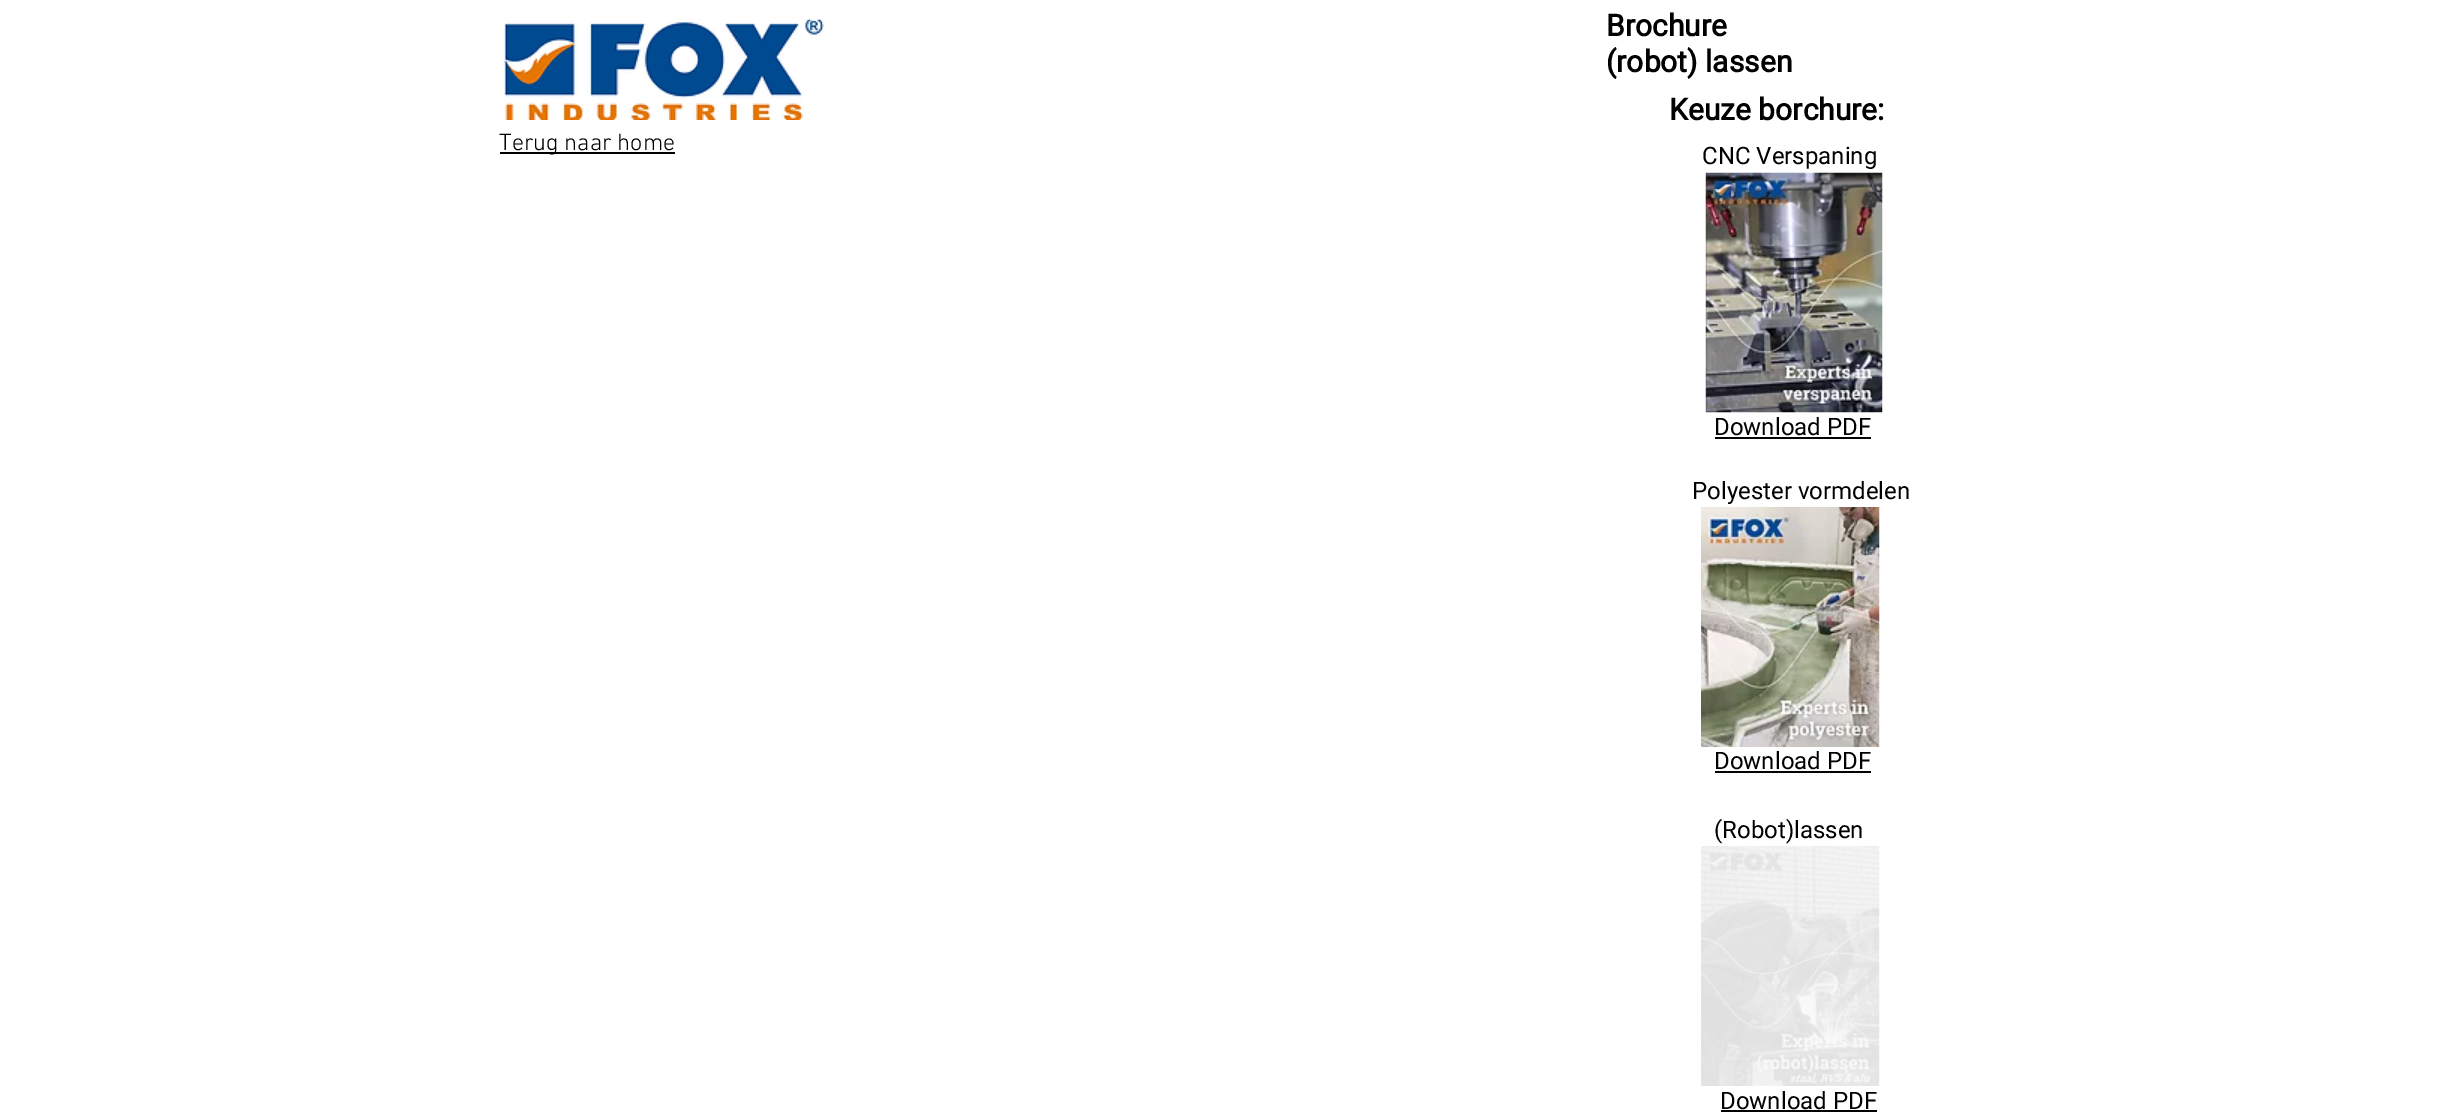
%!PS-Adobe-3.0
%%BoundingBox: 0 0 2437 1116
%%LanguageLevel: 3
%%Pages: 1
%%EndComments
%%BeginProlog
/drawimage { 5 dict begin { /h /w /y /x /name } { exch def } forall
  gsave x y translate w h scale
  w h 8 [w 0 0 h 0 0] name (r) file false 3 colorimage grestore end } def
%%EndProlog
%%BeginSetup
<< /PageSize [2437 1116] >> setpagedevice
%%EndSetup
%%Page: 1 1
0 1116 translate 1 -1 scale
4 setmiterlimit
1 setgray
0 0 2437 1116 rectfill
(images/1.raw) 503 19 321 101 drawimage
0 setgray
500 152 175 2 rectfill
(images/2.raw) 1705 172 178 241 drawimage
1715 437 156 2 rectfill
(images/3.raw) 1701 507 179 240 drawimage
1715 771 156 2 rectfill
(images/4.raw) 1701 846 179 240 drawimage
1721 1110 156 2 rectfill
/Roboto-Bold [30 0 0 -30 0 0] selectfont
1606 36 moveto (Brochure) show
1606 72 moveto (\(robot\) lassen) show
1669 120 moveto (Keuze borchure:) show
/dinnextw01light-Light [24 0 0 -24 0 0] selectfont
499 150 moveto (Terug naar home) show
/Roboto-Regular [24 0 0 -24 0 0] selectfont
1702 164 moveto (CNC Verspaning) show
1714 435 moveto (Download PDF) show
1692 499 moveto (Polyester vormdelen) show
1714 769 moveto (Download PDF) show
1714 838 moveto (\(Robot\)lassen) show
1720 1109 moveto (Download PDF) show
showpage
%%EOF
